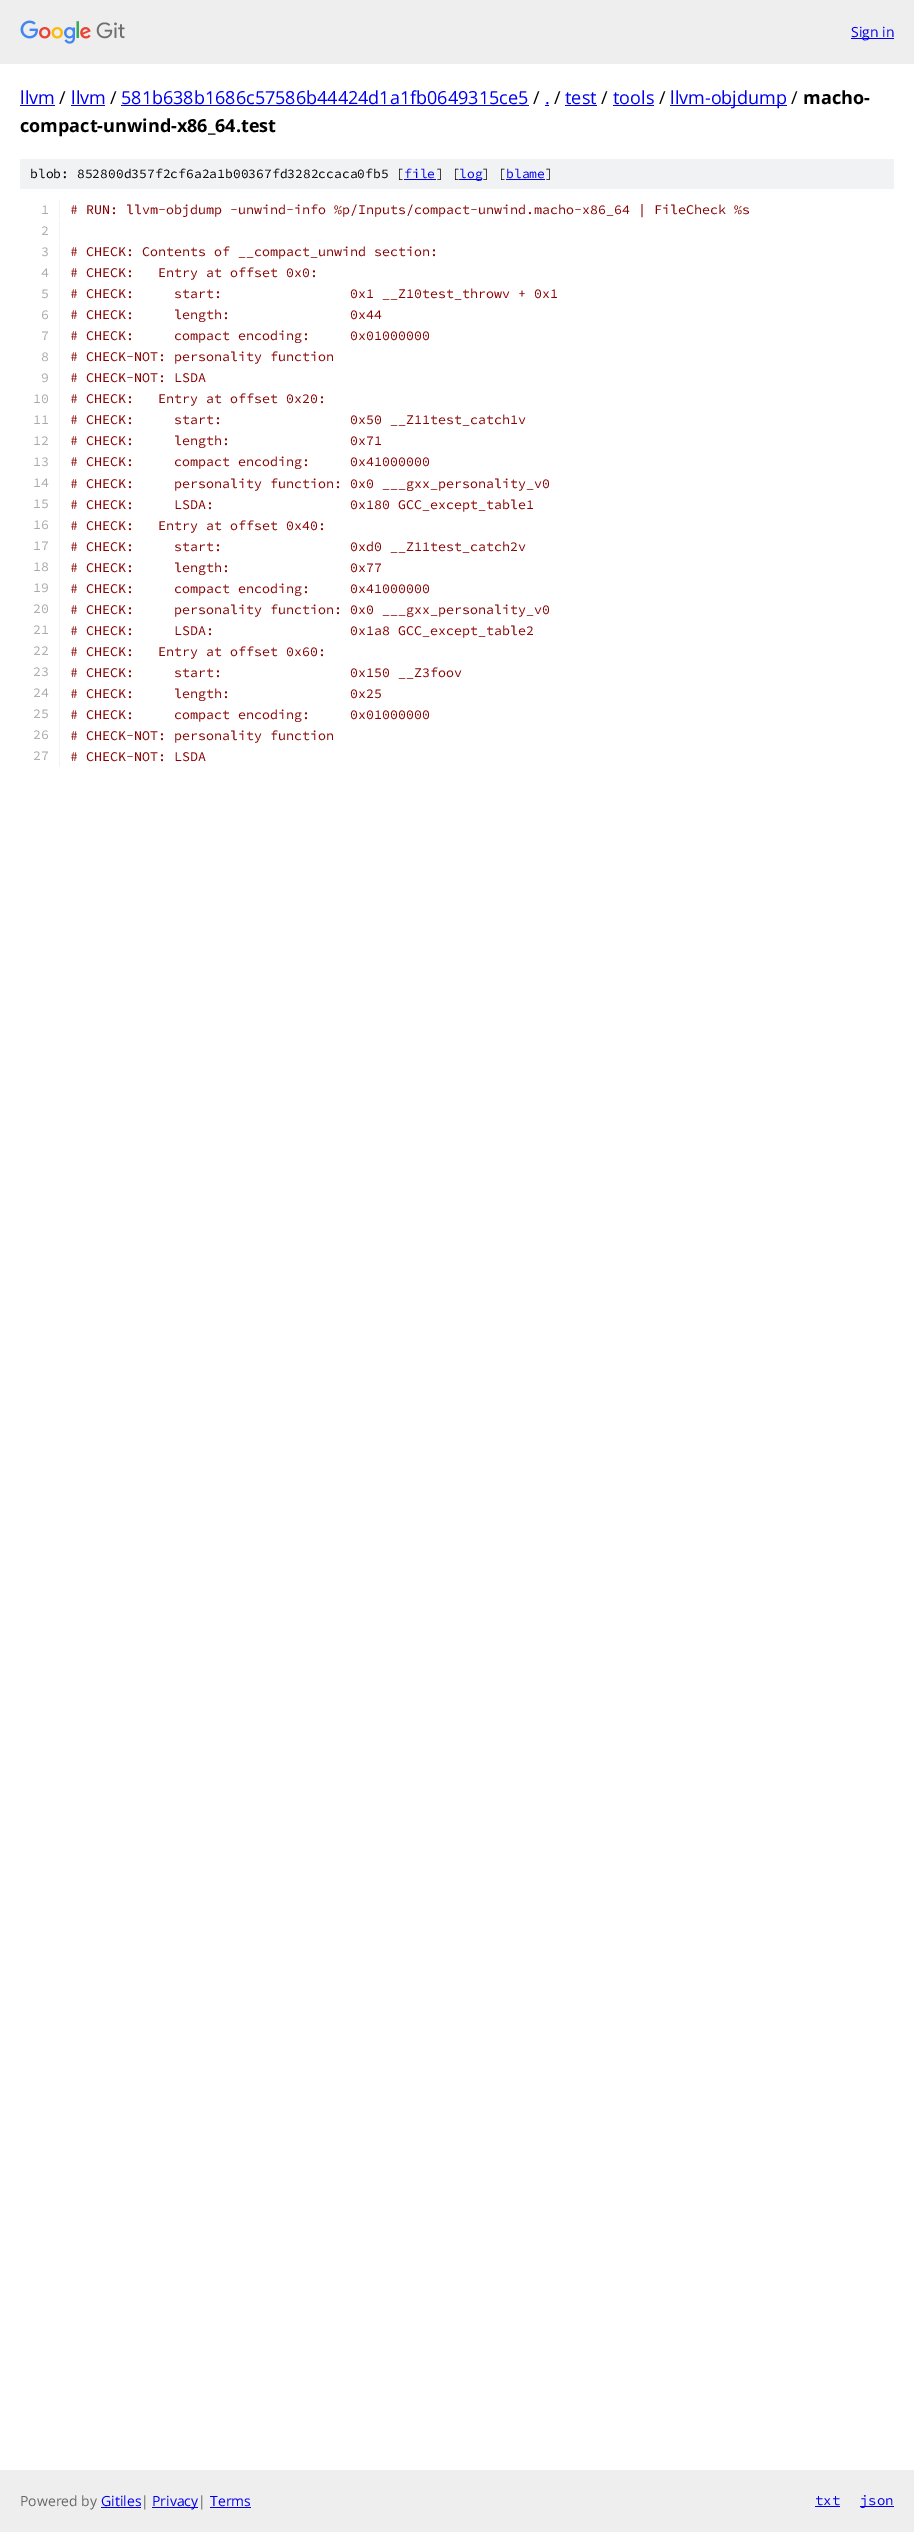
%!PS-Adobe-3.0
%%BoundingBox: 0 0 914 2532
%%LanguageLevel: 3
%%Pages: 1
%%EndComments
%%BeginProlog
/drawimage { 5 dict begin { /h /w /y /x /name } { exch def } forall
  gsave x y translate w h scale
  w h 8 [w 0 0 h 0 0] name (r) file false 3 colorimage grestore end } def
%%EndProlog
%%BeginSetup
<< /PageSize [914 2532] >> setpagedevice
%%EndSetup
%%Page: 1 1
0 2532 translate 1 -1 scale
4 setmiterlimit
1 setgray
0 0 914 2532 rectfill
0.933 setgray
0 0 914 64 rectfill
(images/1.raw) 20 20 105 24 drawimage
0 0 0.933 setrgbcolor
851 38 43 1 rectfill
20 105 35 1 rectfill
71 105 34 1 rectfill
121 105 408 1 rectfill
545 105 4 1 rectfill
565 105 32 1 rectfill
613 105 41 1 rectfill
670 105 117 1 rectfill
0.945 0.949 0.953 setrgbcolor
20 159 874 30 rectfill
0 0 0.933 setrgbcolor
404 179 32 1 rectfill
459 179 23 1 rectfill
506 179 39 1 rectfill
0.945 0.949 0.953 setrgbcolor
59 200 1 20 rectfill
59 221 1 20 rectfill
59 242 1 525 rectfill
0.933 setgray
0 2470 914 62 rectfill
0 0 0.933 setrgbcolor
101 2507 40 1 rectfill
152 2507 46 1 rectfill
210 2507 41 1 rectfill
815 2506 25 1 rectfill
860 2506 34 1 rectfill
/OpenSans-Regular [14 0 0 -14 0 0] selectfont
851 37 moveto (Sign in) show
/OpenSans-Regular [18 0 0 -18 0 0] selectfont
20 104 moveto (llvm) show
0 setgray
59 104 moveto (/) show
0 0 0.933 setrgbcolor
71 104 moveto (llvm) show
0 setgray
110 104 moveto (/) show
0 0 0.933 setrgbcolor
121 104 moveto (581b638b1686c57586b44424d1a1fb0649315ce5) show
0 setgray
533 104 moveto (/) show
0 0 0.933 setrgbcolor
545 104 moveto (.) show
0 setgray
554 104 moveto (/) show
0 0 0.933 setrgbcolor
565 104 moveto (test) show
0 setgray
601 104 moveto (/) show
0 0 0.933 setrgbcolor
613 104 moveto (tools) show
0 setgray
659 104 moveto (/) show
0 0 0.933 setrgbcolor
670 104 moveto (llvm-objdump) show
0 setgray
791 104 moveto (/) show
/OpenSans-Bold [18 0 0 -18 0 0] selectfont
803 104 moveto (macho-) show
20 132 moveto (compact-unwind-x86_64.test) show
/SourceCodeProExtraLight-ExtraLight [13 0 0 -13 0 0] selectfont
30 178 moveto (blob: 852800d357f2cf6a2a1b00367fd3282ccaca0fb5 [) show
0 0 0.933 setrgbcolor
404 178 moveto (file) show
0 setgray
436 178 moveto (] [) show
0 0 0.933 setrgbcolor
459 178 moveto (log) show
0 setgray
482 178 moveto (] [) show
0 0 0.933 setrgbcolor
506 178 moveto (blame) show
0 setgray
545 178 moveto (]) show
/SourceCodeProExtraLight-ExtraLight [13.33 0 0 -13.33 0 0] selectfont
0.667 setgray
41 214 moveto (1) show
0.533 0 0 setrgbcolor
70 214 moveto (# RUN: llvm-objdump -unwind-info %p/Inputs/compact-unwind.macho-x86_64 | FileCheck %s) show
0.667 setgray
41 235 moveto (2) show
41 256 moveto (3) show
0.533 0 0 setrgbcolor
70 256 moveto (# CHECK: Contents of __compact_unwind section:) show
0.667 setgray
41 277 moveto (4) show
0.533 0 0 setrgbcolor
70 277 moveto (# CHECK:   Entry at offset 0x0:) show
0.667 setgray
41 298 moveto (5) show
0.533 0 0 setrgbcolor
70 298 moveto (# CHECK:     start:                0x1 __Z10test_throwv + 0x1) show
0.667 setgray
41 319 moveto (6) show
0.533 0 0 setrgbcolor
70 319 moveto (# CHECK:     length:               0x44) show
0.667 setgray
41 340 moveto (7) show
0.533 0 0 setrgbcolor
70 340 moveto (# CHECK:     compact encoding:     0x01000000) show
0.667 setgray
41 361 moveto (8) show
0.533 0 0 setrgbcolor
70 361 moveto (# CHECK-NOT: personality function) show
0.667 setgray
41 382 moveto (9) show
0.533 0 0 setrgbcolor
70 382 moveto (# CHECK-NOT: LSDA) show
0.667 setgray
33 403 moveto (10) show
0.533 0 0 setrgbcolor
70 403 moveto (# CHECK:   Entry at offset 0x20:) show
0.667 setgray
33 424 moveto (11) show
0.533 0 0 setrgbcolor
70 424 moveto (# CHECK:     start:                0x50 __Z11test_catch1v) show
0.667 setgray
33 445 moveto (12) show
0.533 0 0 setrgbcolor
70 445 moveto (# CHECK:     length:               0x71) show
0.667 setgray
33 466 moveto (13) show
0.533 0 0 setrgbcolor
70 466 moveto (# CHECK:     compact encoding:     0x41000000) show
0.667 setgray
33 487 moveto (14) show
0.533 0 0 setrgbcolor
70 488 moveto (# CHECK:     personality function: 0x0 ___gxx_personality_v0) show
0.667 setgray
33 508 moveto (15) show
0.533 0 0 setrgbcolor
70 509 moveto (# CHECK:     LSDA:                 0x180 GCC_except_table1) show
0.667 setgray
33 529 moveto (16) show
0.533 0 0 setrgbcolor
70 530 moveto (# CHECK:   Entry at offset 0x40:) show
0.667 setgray
33 550 moveto (17) show
0.533 0 0 setrgbcolor
70 551 moveto (# CHECK:     start:                0xd0 __Z11test_catch2v) show
0.667 setgray
33 571 moveto (18) show
0.533 0 0 setrgbcolor
70 572 moveto (# CHECK:     length:               0x77) show
0.667 setgray
33 592 moveto (19) show
0.533 0 0 setrgbcolor
70 593 moveto (# CHECK:     compact encoding:     0x41000000) show
0.667 setgray
33 613 moveto (20) show
0.533 0 0 setrgbcolor
70 614 moveto (# CHECK:     personality function: 0x0 ___gxx_personality_v0) show
0.667 setgray
33 634 moveto (21) show
0.533 0 0 setrgbcolor
70 635 moveto (# CHECK:     LSDA:                 0x1a8 GCC_except_table2) show
0.667 setgray
33 655 moveto (22) show
0.533 0 0 setrgbcolor
70 656 moveto (# CHECK:   Entry at offset 0x60:) show
0.667 setgray
33 676 moveto (23) show
0.533 0 0 setrgbcolor
70 677 moveto (# CHECK:     start:                0x150 __Z3foov) show
0.667 setgray
33 697 moveto (24) show
0.533 0 0 setrgbcolor
70 698 moveto (# CHECK:     length:               0x25) show
0.667 setgray
33 718 moveto (25) show
0.533 0 0 setrgbcolor
70 719 moveto (# CHECK:     compact encoding:     0x01000000) show
0.667 setgray
33 739 moveto (26) show
0.533 0 0 setrgbcolor
70 740 moveto (# CHECK-NOT: personality function) show
0.667 setgray
33 760 moveto (27) show
0.533 0 0 setrgbcolor
70 761 moveto (# CHECK-NOT: LSDA) show
/OpenSans-Regular [14 0 0 -14 0 0] selectfont
0.4 setgray
20 2506 moveto (Powered by) show
0 0 0.933 setrgbcolor
101 2506 moveto (Gitiles) show
0.4 setgray
141 2506 moveto (|) show
0 0 0.933 setrgbcolor
152 2506 moveto (Privacy) show
0.4 setgray
198 2506 moveto (|) show
0 0 0.933 setrgbcolor
210 2506 moveto (Terms) show
/SourceCodeProExtraLight-ExtraLight [14 0 0 -14 0 0] selectfont
815 2505 moveto (txt) show
860 2505 moveto (json) show
showpage
%%EOF
